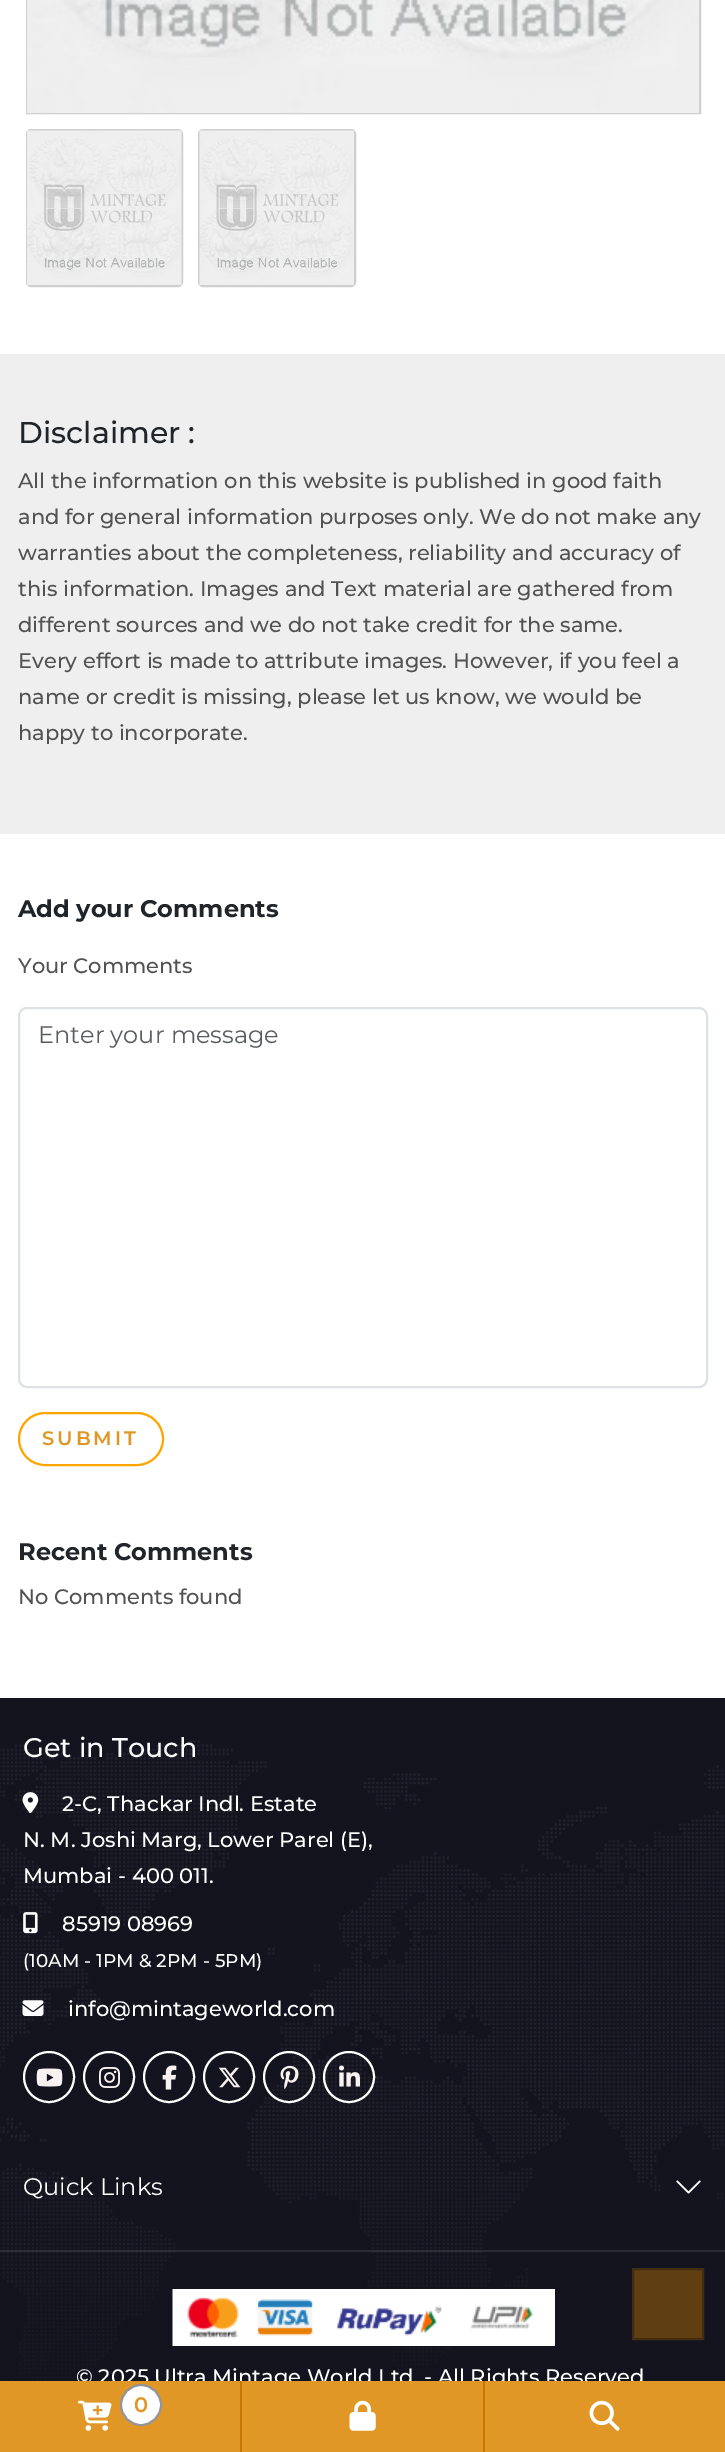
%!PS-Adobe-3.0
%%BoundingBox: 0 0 725 2452
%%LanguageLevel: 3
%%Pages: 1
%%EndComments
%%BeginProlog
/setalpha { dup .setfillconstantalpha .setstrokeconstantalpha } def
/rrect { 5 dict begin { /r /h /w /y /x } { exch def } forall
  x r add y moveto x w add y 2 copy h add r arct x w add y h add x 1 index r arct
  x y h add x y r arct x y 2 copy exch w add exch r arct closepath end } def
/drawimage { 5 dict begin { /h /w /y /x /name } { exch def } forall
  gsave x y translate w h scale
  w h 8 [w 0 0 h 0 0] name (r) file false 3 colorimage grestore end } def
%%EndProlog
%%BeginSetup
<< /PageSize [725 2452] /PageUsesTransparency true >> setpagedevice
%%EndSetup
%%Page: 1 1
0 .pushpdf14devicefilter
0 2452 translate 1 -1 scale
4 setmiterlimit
1 setgray
0 0 725 2452 rectfill
0.812 setgray
2 setlinewidth
27 -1 673 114 rectstroke
(images/1.raw) 27 0 672 113 drawimage
27 130 155 156 4 rrect stroke
(images/2.raw) 27 130 155 155 drawimage
199 130 156 156 4 rrect stroke
(images/3.raw) 199 130 155 155 drawimage
0.937 setgray
0 354 725 480 rectfill
0.871 0.886 0.902 setrgbcolor
19 1008 688 379 8 rrect stroke
1 0.647 0 setrgbcolor
19 1413 144 52 26 rrect stroke
0.129 0.145 0.161 setrgbcolor
0 1698 725 683 rectfill
(images/4.raw) 0 1698 725 683 drawimage
(images/5.raw) 22 1792 17 22 drawimage
(images/6.raw) 23 1912 15 22 drawimage
(images/7.raw) 22 2000 22 16 drawimage
1 setgray
newpath 49 2077 25 0 360 arc closepath stroke
(images/8.raw) 36 2068 27 19 drawimage
newpath 109 2077 25 0 360 arc closepath stroke
(images/9.raw) 99 2067 21 21 drawimage
newpath 169 2077 25 0 360 arc closepath stroke
(images/10.raw) 162 2065 15 25 drawimage
newpath 229 2077 25 0 360 arc closepath stroke
(images/11.raw) 218 2067 23 21 drawimage
newpath 289 2077 25 0 360 arc closepath stroke
(images/12.raw) 280 2065 19 25 drawimage
newpath 349 2077 25 0 360 arc closepath stroke
(images/13.raw) 339 2065 21 22 drawimage
(images/14.raw) 676 2180 25 14 drawimage
0.1 setalpha
0 2250 725 2 rectfill
1 setalpha
(images/15.raw) 172 2289 383 57 drawimage
0.373 0.243 0.067 setrgbcolor
newpath 633 2269 moveto 703 2269 lineto 703 2339 lineto 633 2339 lineto closepath gsave fill grestore
0.263 0.176 0.063 setrgbcolor
stroke
/Montserrat-Medium [30 0 0 -30 0 0] selectfont
0.129 0.145 0.161 setrgbcolor
18 443 moveto (Disclaimer :) show
/Montserrat-Medium [21 0 0 -21 0 0] selectfont
0.322 setgray
18 488 moveto (All the information on this website is published in good faith) show
18 524 moveto (and for general information purposes only. We do not make any) show
18 560 moveto (warranties about the completeness, reliability and accuracy of) show
18 596 moveto (this information. Images and Text material are gathered from) show
18 632 moveto (different sources and we do not take credit for the same.) show
18 668 moveto (Every effort is made to attribute images. However, if you feel a) show
18 704 moveto (name or credit is missing, please let us know, we would be) show
18 740 moveto (happy to incorporate.) show
/Montserrat-Bold [24 0 0 -24 0 0] selectfont
0.129 0.145 0.161 setrgbcolor
18 917 moveto (Add your Comments) show
/Montserrat-Medium [21 0 0 -21 0 0] selectfont
0.322 setgray
18 973 moveto (Your Comments) show
/Montserrat-Regular [24 0 0 -24 0 0] selectfont
0.349 0.361 0.373 setrgbcolor
38 1043 moveto (Enter your message) show
/Montserrat-SemiBold [19.5 0 0 -19.5 0 0] selectfont
0.882 0.592 0.149 setrgbcolor
42 1445 moveto 3 0 (SUBMIT) ashow
/Montserrat-Bold [24 0 0 -24 0 0] selectfont
0.129 0.145 0.161 setrgbcolor
18 1560 moveto (Recent Comments) show
/Montserrat-Medium [21 0 0 -21 0 0] selectfont
0.322 setgray
18 1604 moveto (No Comments found) show
/Montserrat-Medium [27 0 0 -27 0 0] selectfont
0.973 0.976 0.98 setrgbcolor
23 1757 moveto (Get in Touch) show
/Montserrat-Medium [21 0 0 -21 0 0] selectfont
1 setgray
62 1811 moveto (2-C, Thackar Indl. Estate) show
23 1847 moveto (N. M. Joshi Marg, Lower Parel \(E\),) show
23 1883 moveto (Mumbai - 400 011.) show
62 1931 moveto (85919 08969) show
/Montserrat-Medium [18.4 0 0 -18.4 0 0] selectfont
23 1967 moveto (\(10AM - 1PM & 2PM - 5PM\)) show
/Montserrat-Medium [21 0 0 -21 0 0] selectfont
68 2016 moveto (info@mintageworld.com) show
/Montserrat-Regular [24 0 0 -24 0 0] selectfont
23 2195 moveto (Quick Links) show
/Montserrat-Medium [21 0 0 -21 0 0] selectfont
76 2384 moveto (© 2025 Ultra Mintage World Ltd. - All Rights Reserved) show
0.882 0.592 0.149 setrgbcolor
0 2381 240 71 rectfill
0.78 0.471 0 setrgbcolor
240 2381 2 71 rectfill
(images/16.raw) 78 2400 34 31 drawimage
1 setgray
newpath 141 2405 20 0 360 arc closepath gsave fill grestore
0.576 0.584 0.596 setrgbcolor
stroke
/Montserrat-SemiBold [21 0 0 -21 0 0] selectfont
0.882 0.592 0.149 setrgbcolor
134 2412 moveto (0) show
242 2381 241 71 rectfill
0.78 0.471 0 setrgbcolor
483 2381 2 71 rectfill
(images/17.raw) 349 2400 27 31 drawimage
0.882 0.592 0.149 setrgbcolor
485 2381 240 71 rectfill
(images/18.raw) 589 2400 31 31 drawimage
.poppdf14devicefilter showpage
%%EOF
